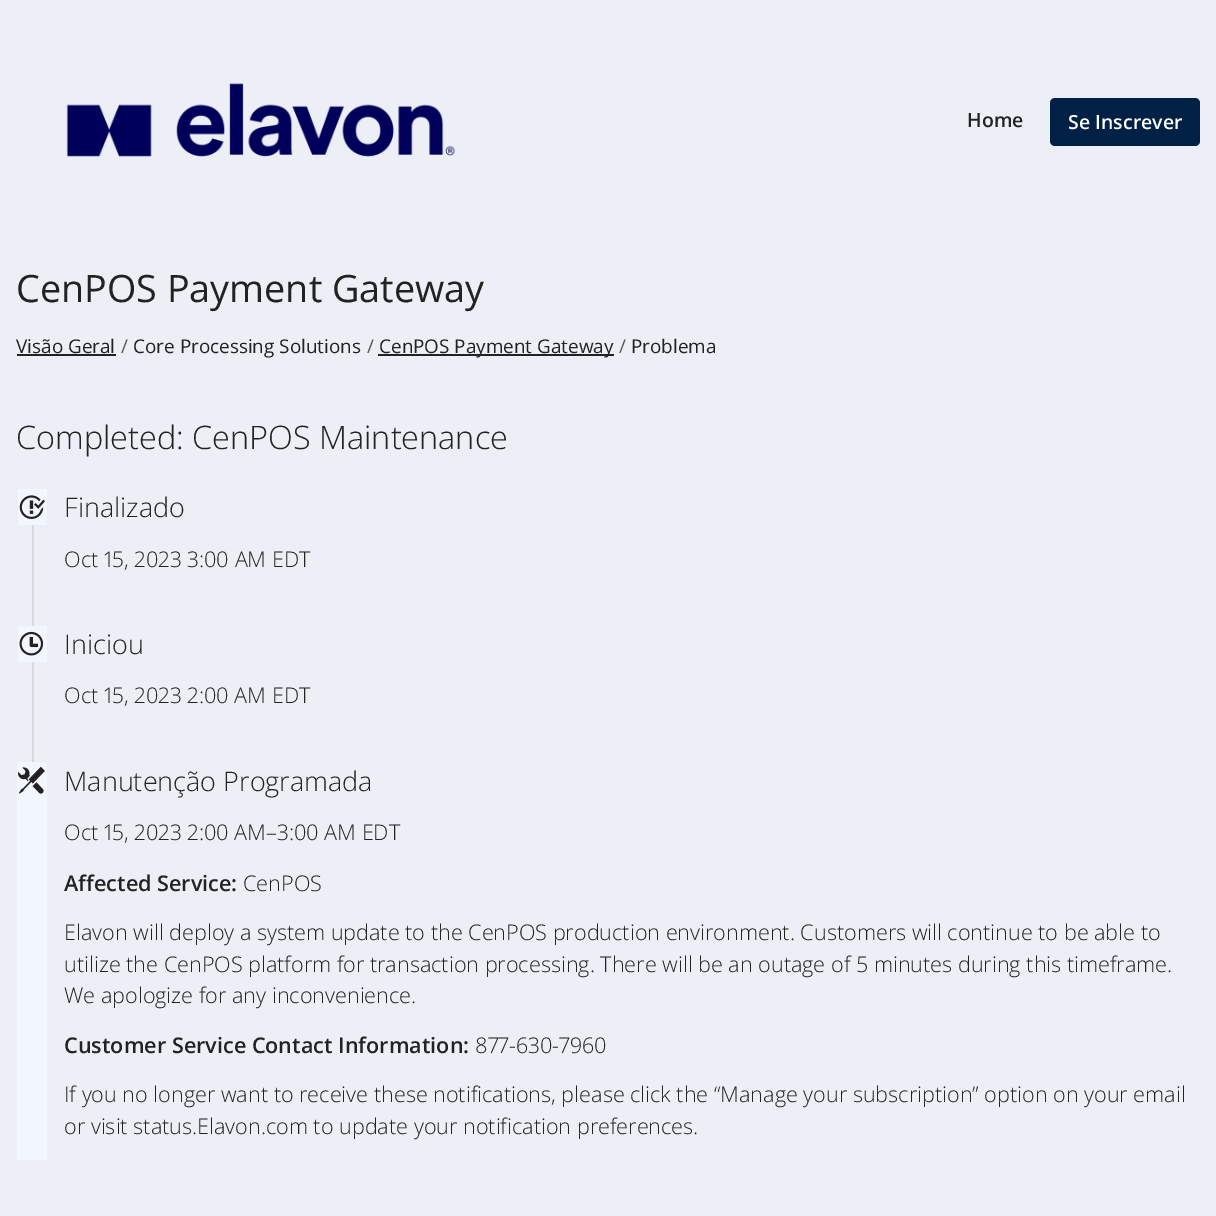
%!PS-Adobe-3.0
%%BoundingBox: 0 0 1216 1216
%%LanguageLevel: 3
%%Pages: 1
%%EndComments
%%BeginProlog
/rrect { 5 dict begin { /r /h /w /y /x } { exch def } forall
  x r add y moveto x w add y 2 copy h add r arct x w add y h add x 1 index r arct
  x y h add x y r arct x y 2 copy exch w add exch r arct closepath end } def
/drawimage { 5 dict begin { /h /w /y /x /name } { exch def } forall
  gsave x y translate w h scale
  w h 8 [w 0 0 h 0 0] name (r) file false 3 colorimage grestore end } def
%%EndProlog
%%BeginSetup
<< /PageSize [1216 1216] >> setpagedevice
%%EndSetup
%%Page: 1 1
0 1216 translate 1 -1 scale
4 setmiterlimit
0.929 0.937 0.965 setrgbcolor
0 0 1216 1216 rectfill
(images/1.raw) 66 83 389 74 drawimage
0 0.125 0.271 setrgbcolor
1050 98 150 48 5 rrect fill
0.133 setgray
17 354 99 2 rectfill
378 354 236 2 rectfill
0.851 setgray
32 525 2 237 rectfill
0.949 0.965 1 setrgbcolor
18 489 29 36 rectfill
(images/2.raw) 19 495 26 24 drawimage
18 626 29 36 rectfill
(images/3.raw) 19 631 25 25 drawimage
17 762 30 398 rectfill
(images/4.raw) 18 766 27 28 drawimage
/OpenSans-SemiBold [19.5 0 0 -19.5 0 0] selectfont
0.133 setgray
967 127 moveto (Home) show
1 setgray
1068 129 moveto (Se Inscrever) show
/OpenSans-Regular [37.75 0 0 -37.75 0 0] selectfont
0.133 setgray
16 302 moveto (CenPOS Payment Gateway) show
/OpenSans-Regular [18.9 0 0 -18.9 0 0] selectfont
16 353 moveto (Visão Geral) show
0.337 setgray
121 353 moveto (/) show
0.133 setgray
133 353 moveto (Core Processing Solutions) show
0.337 setgray
367 353 moveto (/) show
0.133 setgray
379 353 moveto (CenPOS Payment Gateway) show
0.337 setgray
619 353 moveto (/) show
0.133 setgray
631 353 moveto (Problema) show
/OpenSans-Light [32.4 0 0 -32.4 0 0] selectfont
16 449 moveto (Completed: CenPOS Maintenance) show
/OpenSans-Light [27 0 0 -27 0 0] selectfont
64 517 moveto (Finalizado) show
/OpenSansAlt-Light [21.6 0 0 -21.6 0 0] selectfont
64 567 moveto (Oct 15, 2023 3:00 AM EDT) show
/OpenSans-Light [27 0 0 -27 0 0] selectfont
64 654 moveto (Iniciou) show
/OpenSansAlt-Light [21.6 0 0 -21.6 0 0] selectfont
64 703 moveto (Oct 15, 2023 2:00 AM EDT) show
/OpenSans-Light [27 0 0 -27 0 0] selectfont
64 791 moveto (Manutenção Programada) show
/OpenSansAlt-Light [21.6 0 0 -21.6 0 0] selectfont
64 840 moveto (Oct 15, 2023 2:00 AM–3:00 AM EDT) show
/OpenSans-SemiBold [21.6 0 0 -21.6 0 0] selectfont
64 891 moveto (Affected Service:) show
/OpenSans-Light [21.6 0 0 -21.6 0 0] selectfont
243 891 moveto (CenPOS) show
64 940 moveto (Elavon will deploy a system update to the CenPOS production environment. Customers will continue to be able to) show
64 972 moveto (utilize the CenPOS platform for transaction processing. There will be an outage of 5 minutes during this timeframe.) show
64 1003 moveto (We apologize for any inconvenience.) show
/OpenSans-SemiBold [21.6 0 0 -21.6 0 0] selectfont
64 1053 moveto (Customer Service Contact Information:) show
/OpenSansAlt-Light [21.6 0 0 -21.6 0 0] selectfont
475 1053 moveto (877-630-7960) show
/OpenSans-Light [21.6 0 0 -21.6 0 0] selectfont
64 1102 moveto (If you no longer want to receive these notifications, please click the “Manage your subscription” option on your email) show
64 1134 moveto (or visit status.Elavon.com to update your notification preferences.) show
showpage
%%EOF
